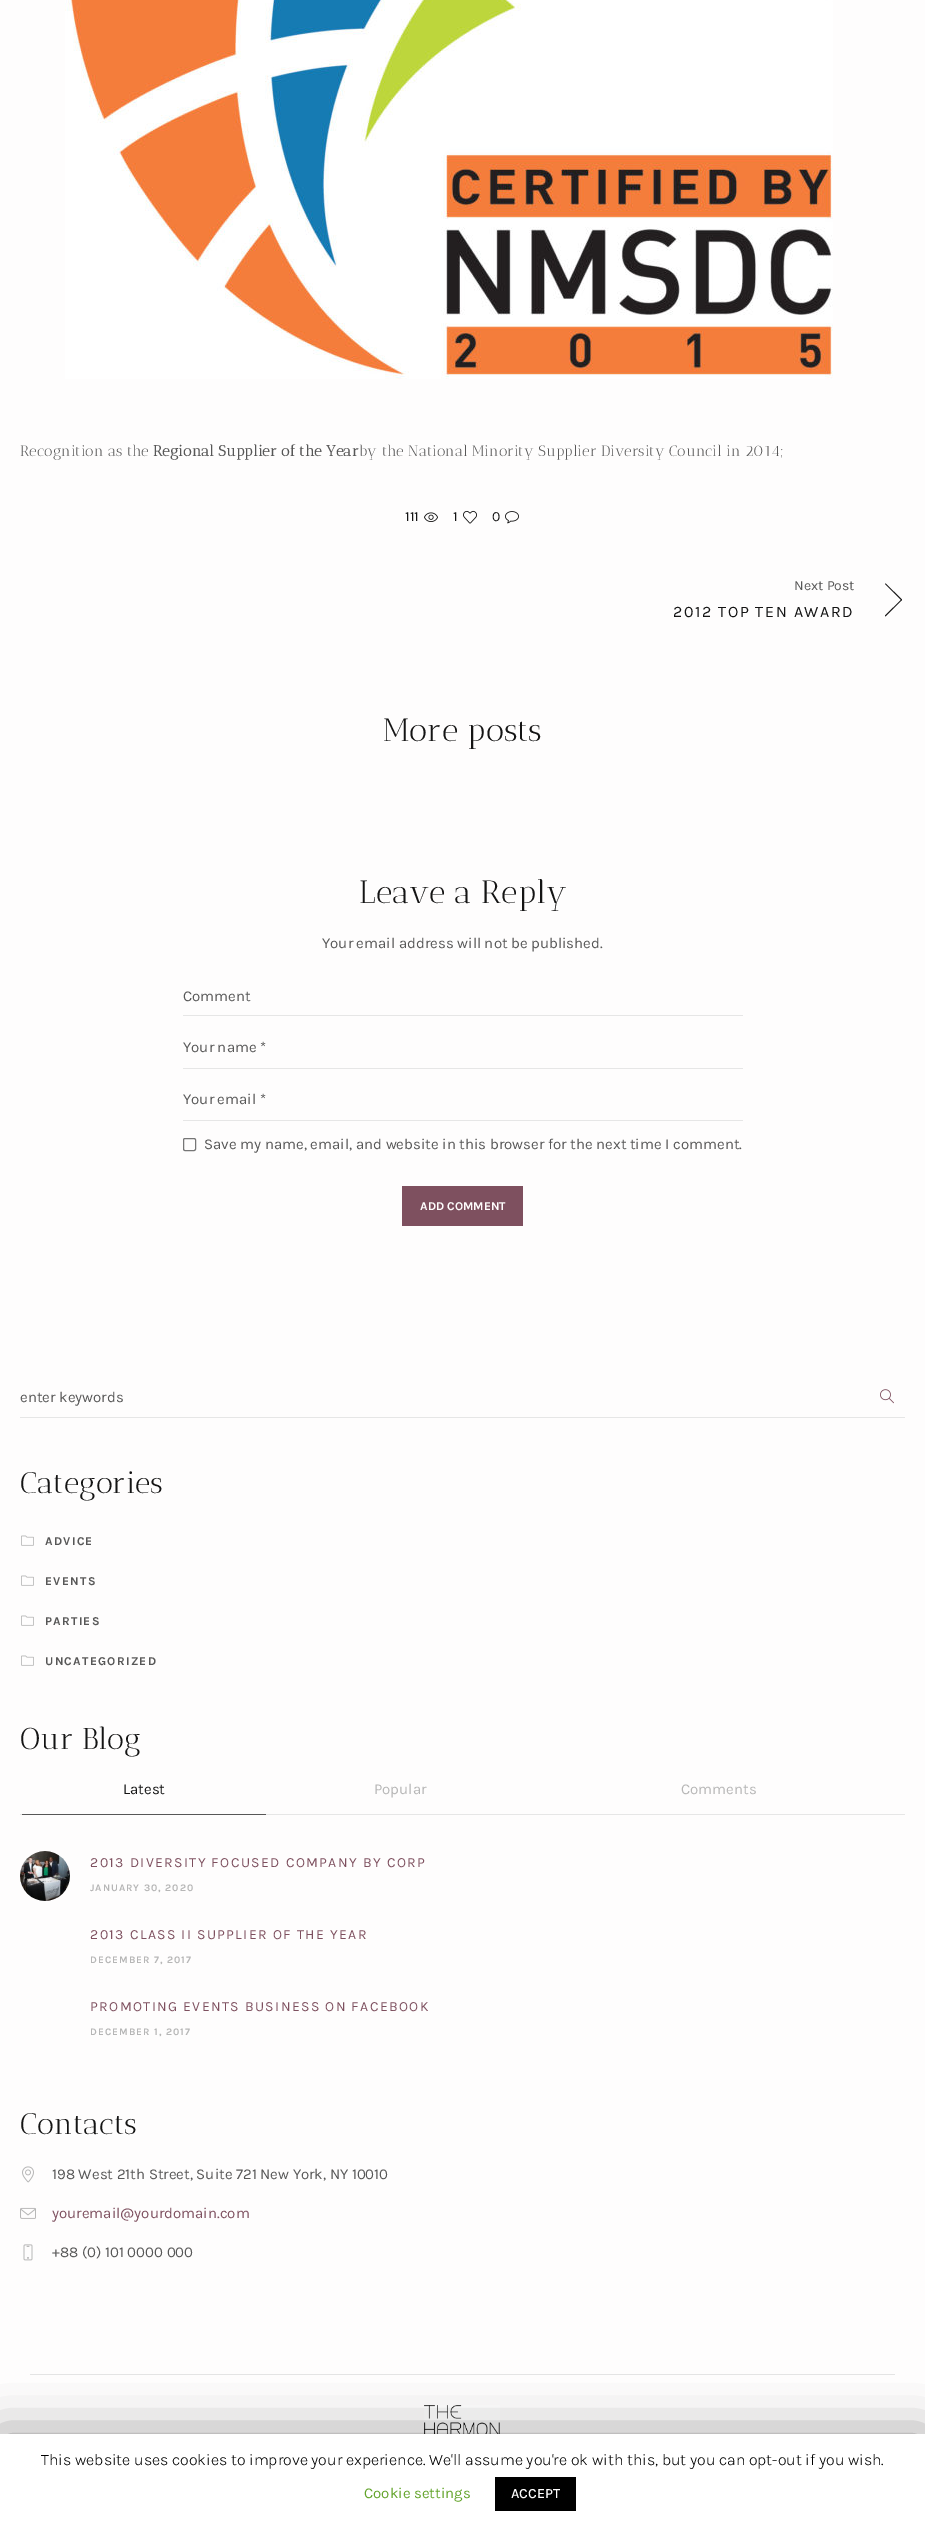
%!PS-Adobe-3.0
%%BoundingBox: 0 0 925 2529
%%LanguageLevel: 3
%%Pages: 1
%%EndComments
%%BeginProlog
/setalpha { dup .setfillconstantalpha .setstrokeconstantalpha } def
/rrect { 5 dict begin { /r /h /w /y /x } { exch def } forall
  x r add y moveto x w add y 2 copy h add r arct x w add y h add x 1 index r arct
  x y h add x y r arct x y 2 copy exch w add exch r arct closepath end } def
/softshadow { 12 dict begin { /a /b /q /h /w /y /x } { exch def } forall gsave /was 0 def
  9 -2 -9 { dup b mul 4 div /e exch def 1 sub .425 mul 2.718 exch exp 1 add a .99 .min exch div /now exch def
    1 1 now sub 1 was sub div sub setalpha /was now def
    w h .min e 2 mul add 0 gt { x e sub y e sub w e 2 mul add h e 2 mul add
      q e add b .6 mul add w h .min 2 div e add .min 0 .max rrect fill } if } for grestore end } def
/drawimage { 5 dict begin { /h /w /y /x /name } { exch def } forall
  gsave x y translate w h scale
  w h 8 [w 0 0 h 0 0] name (r) file false 3 colorimage grestore end } def
%%EndProlog
%%BeginSetup
<< /PageSize [925 2529] /PageUsesTransparency true >> setpagedevice
%%EndSetup
%%Page: 1 1
0 .pushpdf14devicefilter
0 2529 translate 1 -1 scale
4 setmiterlimit
0.996 0.992 0.992 setrgbcolor
0 0 925 2529 rectfill
(images/1.raw) 65 0 768 379 drawimage
(images/2.raw) 424 512 14 10 drawimage
(images/3.raw) 463 510 14 14 drawimage
(images/4.raw) 505 511 14 13 drawimage
0.078 setgray
newpath 885.5 583.5 moveto 902 599.5 lineto 901.5 600.5 lineto 885 584 lineto closepath fill
newpath 902 600 moveto 885.5 616.5 lineto 885 615.5 lineto 901.5 599.5 lineto closepath fill
0.902 setgray
183 1015 560 1 rectfill
183 1068 560 1 rectfill
183 1120 560 1 rectfill
0.463 setgray
183.5 1138.5 12 12 1.5 rrect stroke
0.494 0.314 0.373 setrgbcolor
402 1186 121 40 rectfill
0.902 setgray
20 1417 885 1 rectfill
(images/5.raw) 880 1389 14 15 drawimage
(images/6.raw) 21 1535 13 11 drawimage
(images/6.raw) 21 1575 13 11 drawimage
(images/6.raw) 21 1615 13 11 drawimage
(images/6.raw) 21 1655 13 11 drawimage
20 1814 885 1 rectfill
0.341 setgray
22 1814 244 1 rectfill
(images/7.raw) 20 1851 50 50 drawimage
(images/8.raw) 22 2166 12 17 drawimage
(images/9.raw) 20 2207 16 12 drawimage
(images/10.raw) 23 2244 10 17 drawimage
0.894 setgray
30 2374 865 1 rectfill
(images/11.raw) 424 2405 76 29 drawimage
0 setgray
0 2439 925 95 0 25 0.5 softshadow
1 setgray
0 2434 925 95 rectfill
0 setgray
495 2477 81 34 rectfill
/AnticDidone-Regular [15 0 0 -15 0 0] selectfont
0.341 setgray
20 456 moveto (Recognition as the) show
/AnticDidone-Bold [15 0 0 -15 0 0] selectfont
153 456 moveto (Regional Supplier of the Year) show
/AnticDidone-Regular [15 0 0 -15 0 0] selectfont
359 456 moveto (by the National Minority Supplier Diversity Council in 2014;) show
/Karla-Regular [14 0 0 -14 0 0] selectfont
0.078 setgray
405 521 moveto (111) show
453 521 moveto (1) show
492 521 moveto (0) show
0.341 setgray
794 590 moveto (Next Post) show
/Karla-Regular [16 0 0 -16 0 0] selectfont
0.078 setgray
673 617 moveto 1.6 0 (2012 TOP TEN AWARD) ashow
/AnticDidone-Regular [32 0 0 -32 0 0] selectfont
383 741 moveto (More posts) show
359 903 moveto (Leave a Reply) show
/Karla-Regular [15 0 0 -15 0 0] selectfont
0.341 setgray
322 948 moveto (Your email address will not be published.) show
183 1001 moveto (Comment) show
183 1052 moveto (Your name *) show
183 1104 moveto (Your email *) show
204 1149 moveto (Save my name, email, and website in this browser for the next time I comment.) show
/Karla-Bold [12 0 0 -12 0 0] selectfont
0.996 0.992 0.992 setrgbcolor
420 1210 moveto (ADD COMMENT) show
/Karla-Regular [15 0 0 -15 0 0] selectfont
0.341 setgray
20 1402 moveto (enter keywords) show
/AnticDidone-Regular [30 0 0 -30 0 0] selectfont
0.078 setgray
20 1493 moveto (Categories) show
/Karla-Bold [12 0 0 -12 0 0] selectfont
0.341 setgray
45 1545 moveto 1.25 0 (ADVICE) ashow
45 1585 moveto 1.25 0 (EVENTS) ashow
45 1625 moveto 1.25 0 (PARTIES) ashow
45 1665 moveto 1.25 0 (UNCATEGORIZED) ashow
/AnticDidone-Regular [30 0 0 -30 0 0] selectfont
0.078 setgray
20 1749 moveto (Our Blog) show
/Karla-Regular [15 0 0 -15 0 0] selectfont
123 1794 moveto (Latest) show
0.714 setgray
374 1794 moveto (Popular) show
681 1794 moveto (Comments) show
/Karla-Regular [14 0 0 -14 0 0] selectfont
0.494 0.314 0.373 setrgbcolor
90 1867 moveto 1.4 0 (2013 DIVERSITY FOCUSED COMPANY BY CORP) ashow
/Karla-Bold [10 0 0 -10 0 0] selectfont
0.714 setgray
90 1891 moveto 1 0 (JANUARY 30, 2020) ashow
/Karla-Regular [14 0 0 -14 0 0] selectfont
0.494 0.314 0.373 setrgbcolor
90 1939 moveto 1.4 0 (2013 CLASS II SUPPLIER OF THE YEAR) ashow
/Karla-Bold [10 0 0 -10 0 0] selectfont
0.714 setgray
90 1963 moveto 1 0 (DECEMBER 7, 2017) ashow
/Karla-Regular [14 0 0 -14 0 0] selectfont
0.494 0.314 0.373 setrgbcolor
90 2011 moveto 1.4 0 (PROMOTING EVENTS BUSINESS ON FACEBOOK) ashow
/Karla-Bold [10 0 0 -10 0 0] selectfont
0.714 setgray
90 2035 moveto 1 0 (DECEMBER 1, 2017) ashow
/AnticDidone-Regular [30 0 0 -30 0 0] selectfont
0.078 setgray
20 2134 moveto (Contacts) show
/Karla-Regular [15 0 0 -15 0 0] selectfont
0.341 setgray
52 2179 moveto (198 West 21th Street, Suite 721 New York, NY 10010) show
0.494 0.314 0.373 setrgbcolor
52 2218 moveto (youremail@yourdomain.com) show
0.341 setgray
52 2257 moveto (+88 \(0\) 101 0000 000) show
/Karla-Light [16 0 0 -16 0 0] selectfont
0 setgray
41 2465 moveto (This website uses cookies to improve your experience. We'll assume you're ok with this, but you can opt-out if you wish.) show
/Karla-Regular [15 0 0 -15 0 0] selectfont
0.384 0.639 0.161 setrgbcolor
364 2498 moveto (Cookie settings) show
/Karla-Medium [14 0 0 -14 0 0] selectfont
0.996 0.992 0.992 setrgbcolor
511 2498 moveto (ACCEPT) show
.poppdf14devicefilter showpage
%%EOF
